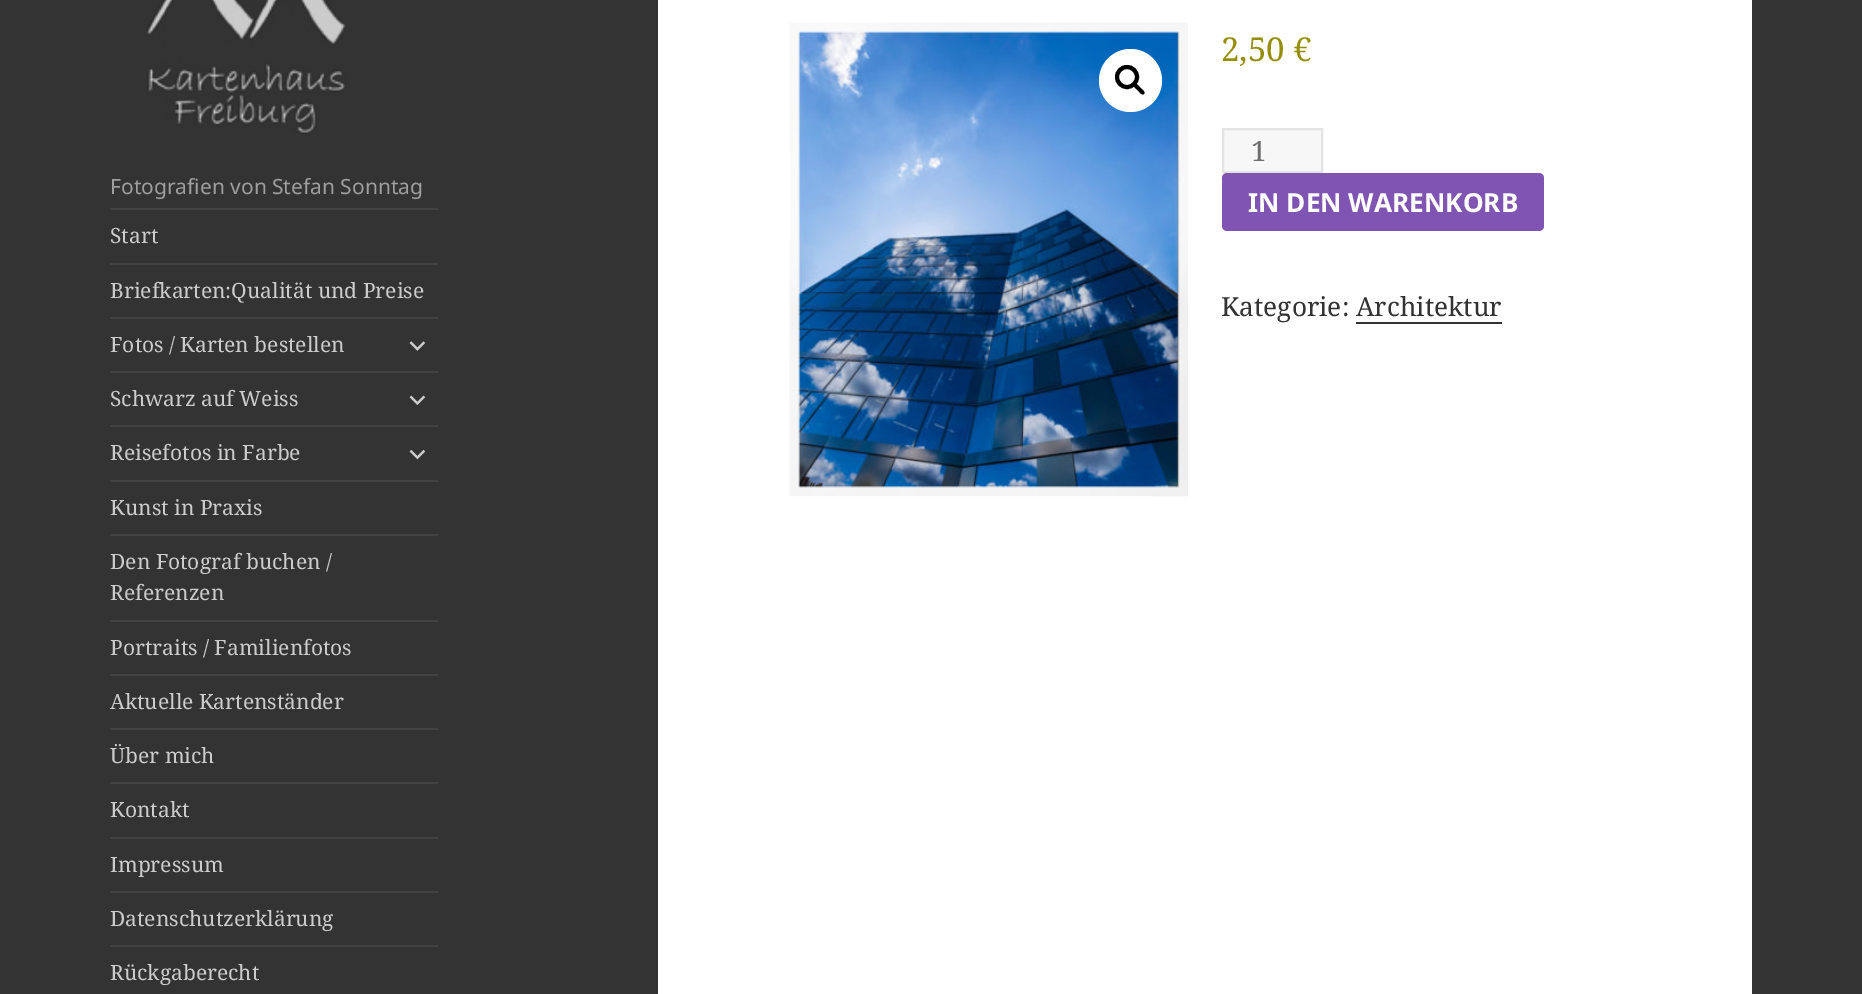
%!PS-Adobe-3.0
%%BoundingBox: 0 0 1862 994
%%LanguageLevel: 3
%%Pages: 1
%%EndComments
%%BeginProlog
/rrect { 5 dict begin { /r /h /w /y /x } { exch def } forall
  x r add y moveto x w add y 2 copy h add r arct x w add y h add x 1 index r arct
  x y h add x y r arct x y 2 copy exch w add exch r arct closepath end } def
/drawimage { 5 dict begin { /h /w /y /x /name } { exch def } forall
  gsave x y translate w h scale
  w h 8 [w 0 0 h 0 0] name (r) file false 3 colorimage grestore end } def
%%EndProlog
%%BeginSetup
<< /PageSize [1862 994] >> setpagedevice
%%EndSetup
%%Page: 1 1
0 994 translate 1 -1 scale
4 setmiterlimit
0.2 setgray
0 0 1862 994 rectfill
(images/1.raw) 147 0 199 134 drawimage
0.259 setgray
110 208 328 2 rectfill
110 263 328 2 rectfill
110 317 328 2 rectfill
(images/2.raw) 409 341 17 10 drawimage
110 371 328 2 rectfill
(images/3.raw) 409 395 17 10 drawimage
110 425 328 2 rectfill
(images/4.raw) 409 449 17 11 drawimage
110 480 328 2 rectfill
110 534 328 2 rectfill
110 620 328 2 rectfill
110 674 328 2 rectfill
110 728 328 2 rectfill
110 782 328 2 rectfill
110 837 328 2 rectfill
110 891 328 2 rectfill
110 945 328 2 rectfill
1 setgray
658 0 1094 994 rectfill
(images/5.raw) 789 22 399 475 drawimage
newpath 1130.5 80.5 31.5 0 360 arc closepath fill
0 setgray
4 setlinewidth
newpath 1127 77 10 0 360 arc closepath stroke
newpath 1134 84 moveto 1136 82 1139.5 87 1140.5 88 curveto 1141.5 89 1146 92 1144 94 curveto 1142 96 1139 91.5 1138 90.5 curveto 1137 89.5 1132 86 1134 84 curveto closepath fill
0.969 setgray
newpath 1223 129 moveto 1322 129 lineto 1322 172 lineto 1223 172 lineto closepath gsave fill grestore
0.89 setgray
2 setlinewidth
stroke
0.498 0.329 0.702 setrgbcolor
1222 173 322 58 5 rrect fill
0.2 setgray
1356 322 146 2 rectfill
/NotoSans-Regular [21 0 0 -21 0 0] selectfont
0.62 setgray
110 194 moveto (Fotografien von Stefan Sonntag) show
/NotoSerif-Regular [21 0 0 -21 0 0] selectfont
0.8 setgray
110 243 moveto (Start) show
110 298 moveto (Briefkarten:Qualität und Preise) show
110 352 moveto (Fotos / Karten bestellen) show
110 406 moveto (Schwarz auf Weiss) show
110 460 moveto (Reisefotos in Farbe) show
110 515 moveto (Kunst in Praxis) show
110 569 moveto (Den Fotograf buchen /) show
110 600 moveto (Referenzen) show
110 655 moveto (Portraits / Familienfotos) show
110 709 moveto (Aktuelle Kartenständer) show
110 763 moveto (Über mich) show
110 817 moveto (Kontakt) show
110 872 moveto (Impressum) show
110 926 moveto (Datenschutzerklärung) show
110 980 moveto (Rückgaberecht) show
/NotoSerif-Regular [33 0 0 -33 0 0] selectfont
0.584 0.557 0.035 setrgbcolor
1221 61 moveto (2,50 €) show
/NotoSerif-Regular [28 0 0 -28 0 0] selectfont
0.431 setgray
1251 161 moveto (1) show
/NotoSans-Bold [26.25 0 0 -26.25 0 0] selectfont
1 setgray
1248 212 moveto (IN DEN WARENKORB) show
/NotoSerif-Regular [26.25 0 0 -26.25 0 0] selectfont
0.2 setgray
1221 316 moveto (Kategorie: Architektur) show
showpage
%%EOF
